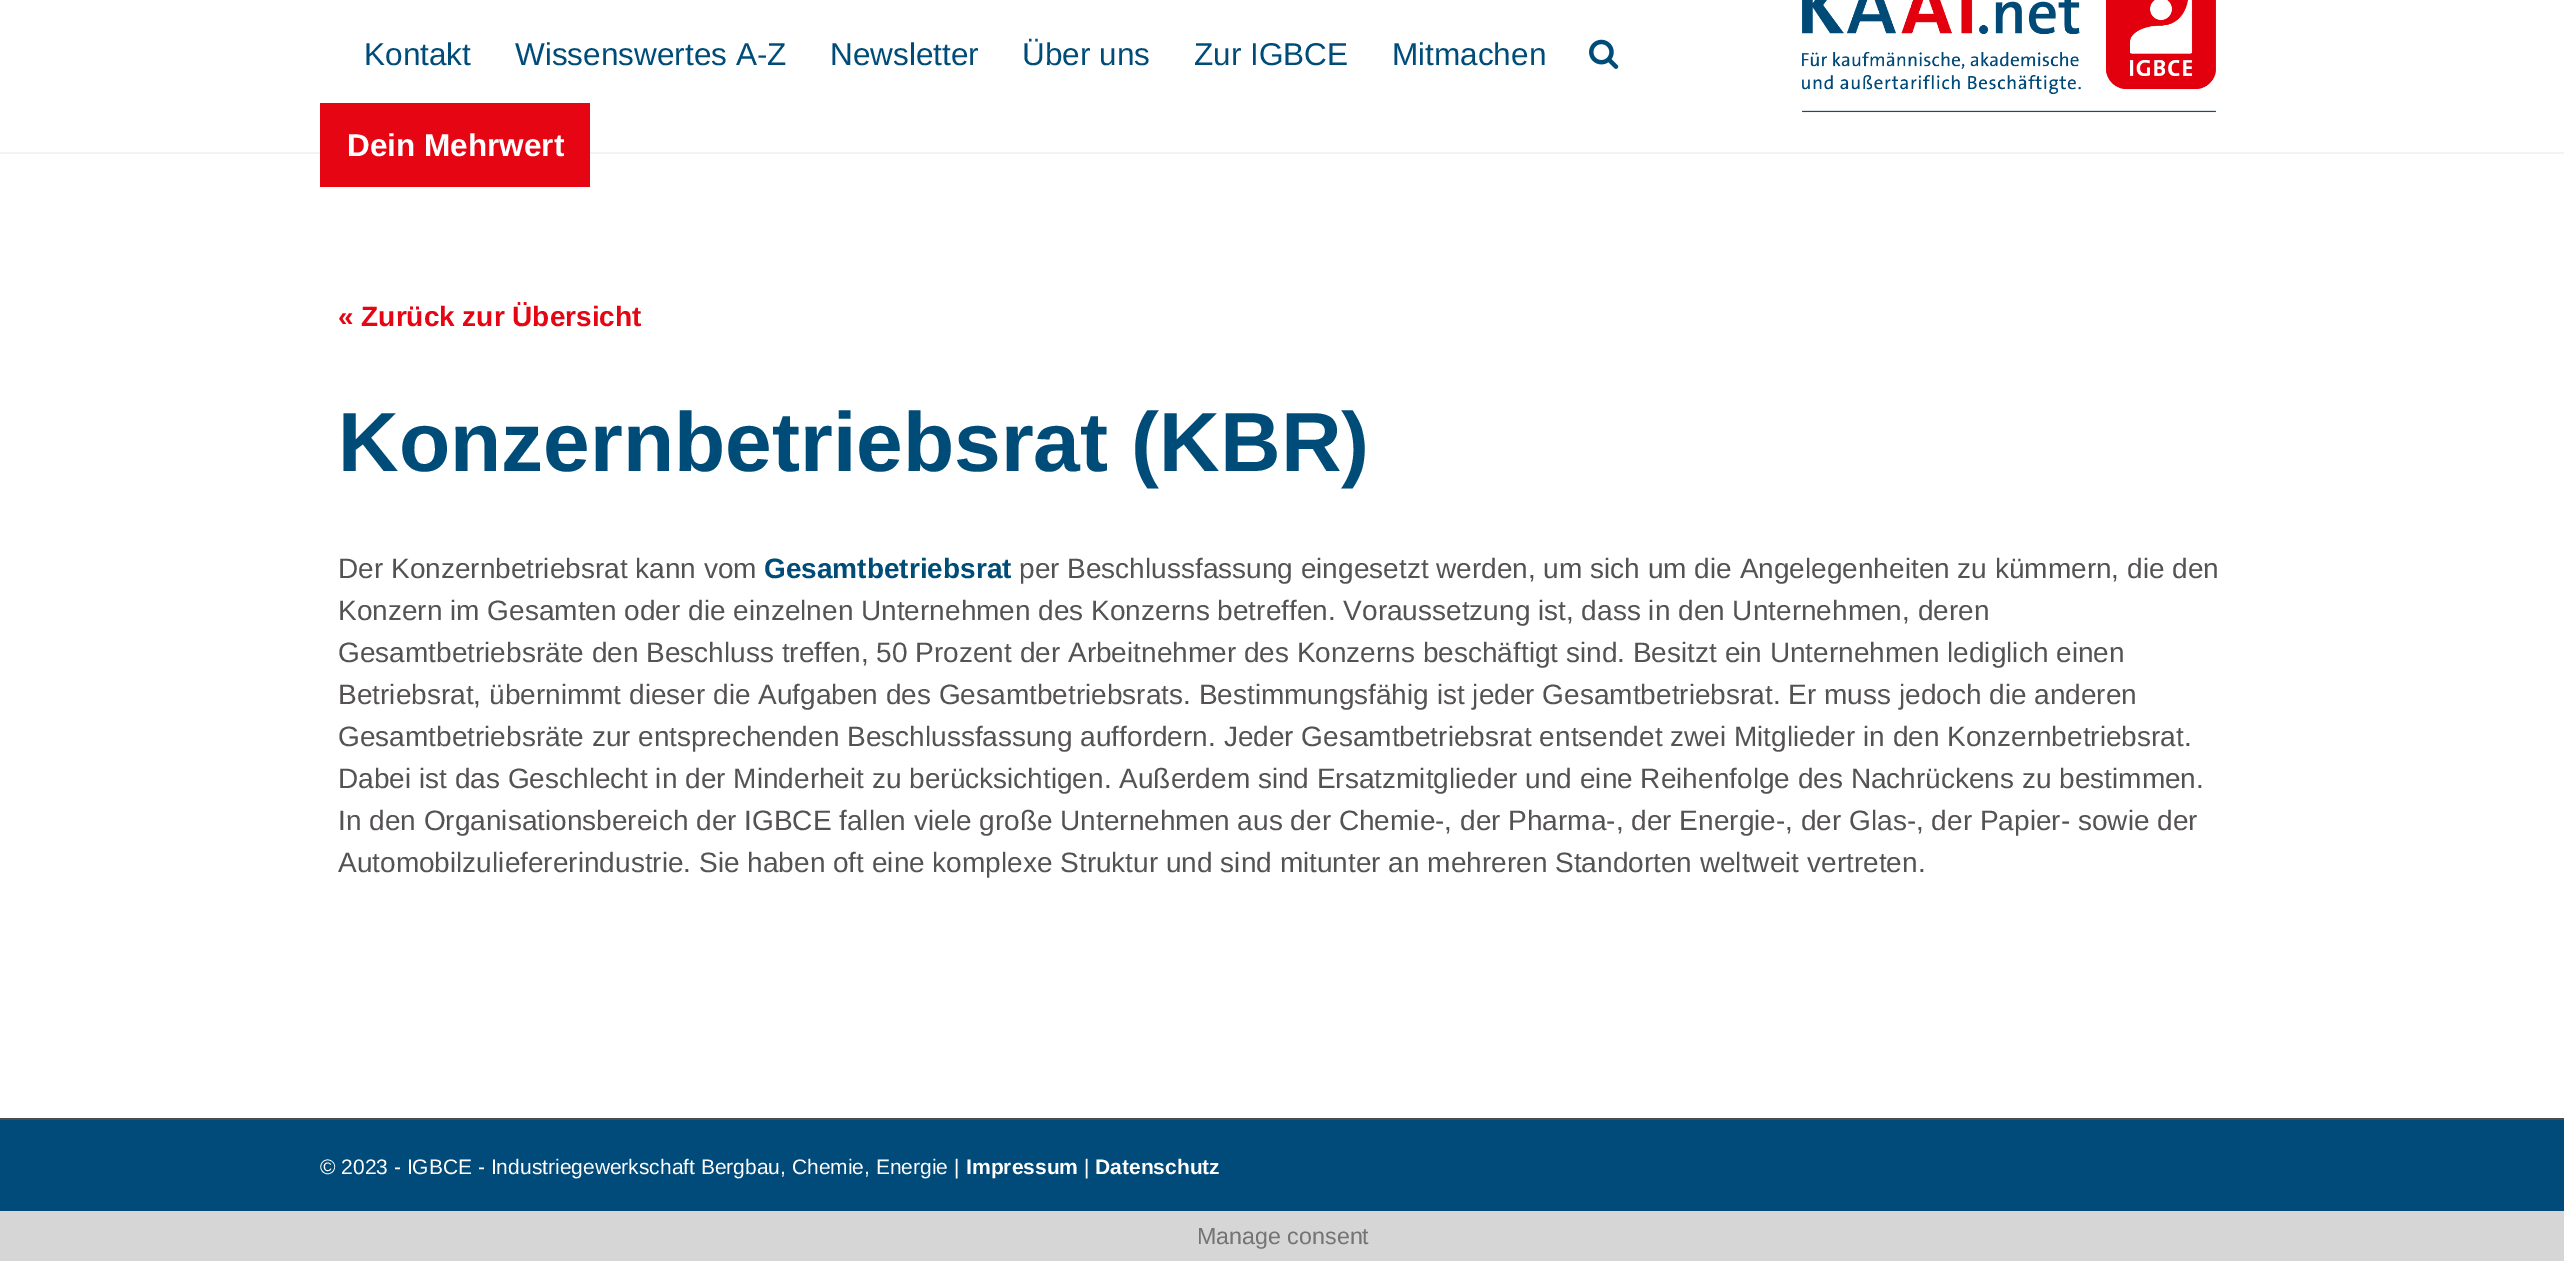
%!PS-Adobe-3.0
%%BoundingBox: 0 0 2564 1261
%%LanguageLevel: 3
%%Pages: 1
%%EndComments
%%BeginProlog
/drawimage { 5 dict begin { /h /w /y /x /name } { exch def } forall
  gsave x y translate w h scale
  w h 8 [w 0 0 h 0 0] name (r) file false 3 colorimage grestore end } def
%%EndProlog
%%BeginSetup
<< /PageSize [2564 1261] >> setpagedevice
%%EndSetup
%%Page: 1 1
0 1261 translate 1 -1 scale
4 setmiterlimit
0.843 0.839 0.839 setrgbcolor
0 0 2564 1261 rectfill
1 setgray
0 0 2564 1118 rectfill
0.953 0.953 0.961 setrgbcolor
0 152 2564 2 rectfill
(images/1.raw) 1589 39 30 30 drawimage
0.898 0.02 0.075 setrgbcolor
320 103 270 84 rectfill
(images/2.raw) 1802 0 414 113 drawimage
0.004 0.294 0.482 setrgbcolor
0 1120 2564 91 rectfill
0.294 0.298 0.302 setrgbcolor
0 1118 2564 2 rectfill
/LiberationSans-Regular [31.5 0 0 -31.5 0 0] selectfont
0 0.298 0.475 setrgbcolor
364 65 moveto (Kontakt) show
515 65 moveto (Wissenswertes A-Z) show
830 65 moveto (Newsletter) show
1022 65 moveto (Über uns) show
1194 65 moveto (Zur IGBCE) show
1392 65 moveto (Mitmachen) show
/LiberationSans-Bold [31.5 0 0 -31.5 0 0] selectfont
1 setgray
347 156 moveto (Dein Mehrwert) show
/LiberationSans-Bold [28 0 0 -28 0 0] selectfont
0.902 0.02 0.075 setrgbcolor
338 326 moveto (« Zurück zur Übersicht) show
/LiberationSans-Bold [84 0 0 -84 0 0] selectfont
0 0.298 0.475 setrgbcolor
338 471 moveto (Konzernbetriebsrat \(KBR\)) show
/LiberationSans-Regular [28 0 0 -28 0 0] selectfont
0.329 0.322 0.322 setrgbcolor
338 578 moveto (Der Konzernbetriebsrat kann vom) show
/LiberationSans-Bold [28 0 0 -28 0 0] selectfont
0 0.298 0.475 setrgbcolor
764 578 moveto (Gesamtbetriebsrat) show
/LiberationSans-Regular [28 0 0 -28 0 0] selectfont
0.329 0.322 0.322 setrgbcolor
1019 578 moveto (per Beschlussfassung eingesetzt werden, um sich um die Angelegenheiten zu kümmern, die den) show
338 620 moveto (Konzern im Gesamten oder die einzelnen Unternehmen des Konzerns betreffen. Voraussetzung ist, dass in den Unternehmen, deren) show
338 662 moveto (Gesamtbetriebsräte den Beschluss treffen, 50 Prozent der Arbeitnehmer des Konzerns beschäftigt sind. Besitzt ein Unternehmen lediglich einen) show
338 704 moveto (Betriebsrat, übernimmt dieser die Aufgaben des Gesamtbetriebsrats. Bestimmungsfähig ist jeder Gesamtbetriebsrat. Er muss jedoch die anderen) show
338 746 moveto (Gesamtbetriebsräte zur entsprechenden Beschlussfassung auffordern. Jeder Gesamtbetriebsrat entsendet zwei Mitglieder in den Konzernbetriebsrat.) show
338 788 moveto (Dabei ist das Geschlecht in der Minderheit zu berücksichtigen. Außerdem sind Ersatzmitglieder und eine Reihenfolge des Nachrückens zu bestimmen.) show
338 830 moveto (In den Organisationsbereich der IGBCE fallen viele große Unternehmen aus der Chemie-, der Pharma-, der Energie-, der Glas-, der Papier- sowie der) show
338 872 moveto (Automobilzuliefererindustrie. Sie haben oft eine komplexe Struktur und sind mitunter an mehreren Standorten weltweit vertreten.) show
/LiberationSans-Regular [21 0 0 -21 0 0] selectfont
1 setgray
320 1174 moveto (© 2023 - IGBCE - Industriegewerkschaft Bergbau, Chemie, Energie |) show
/LiberationSans-Bold [21 0 0 -21 0 0] selectfont
966 1174 moveto (Impressum) show
/LiberationSans-Regular [21 0 0 -21 0 0] selectfont
1084 1174 moveto (|) show
/LiberationSans-Bold [21 0 0 -21 0 0] selectfont
1095 1174 moveto (Datenschutz) show
/LiberationSans-Regular [23.25 0 0 -23.25 0 0] selectfont
0.455 setgray
1197 1244 moveto (Manage consent) show
showpage
%%EOF
